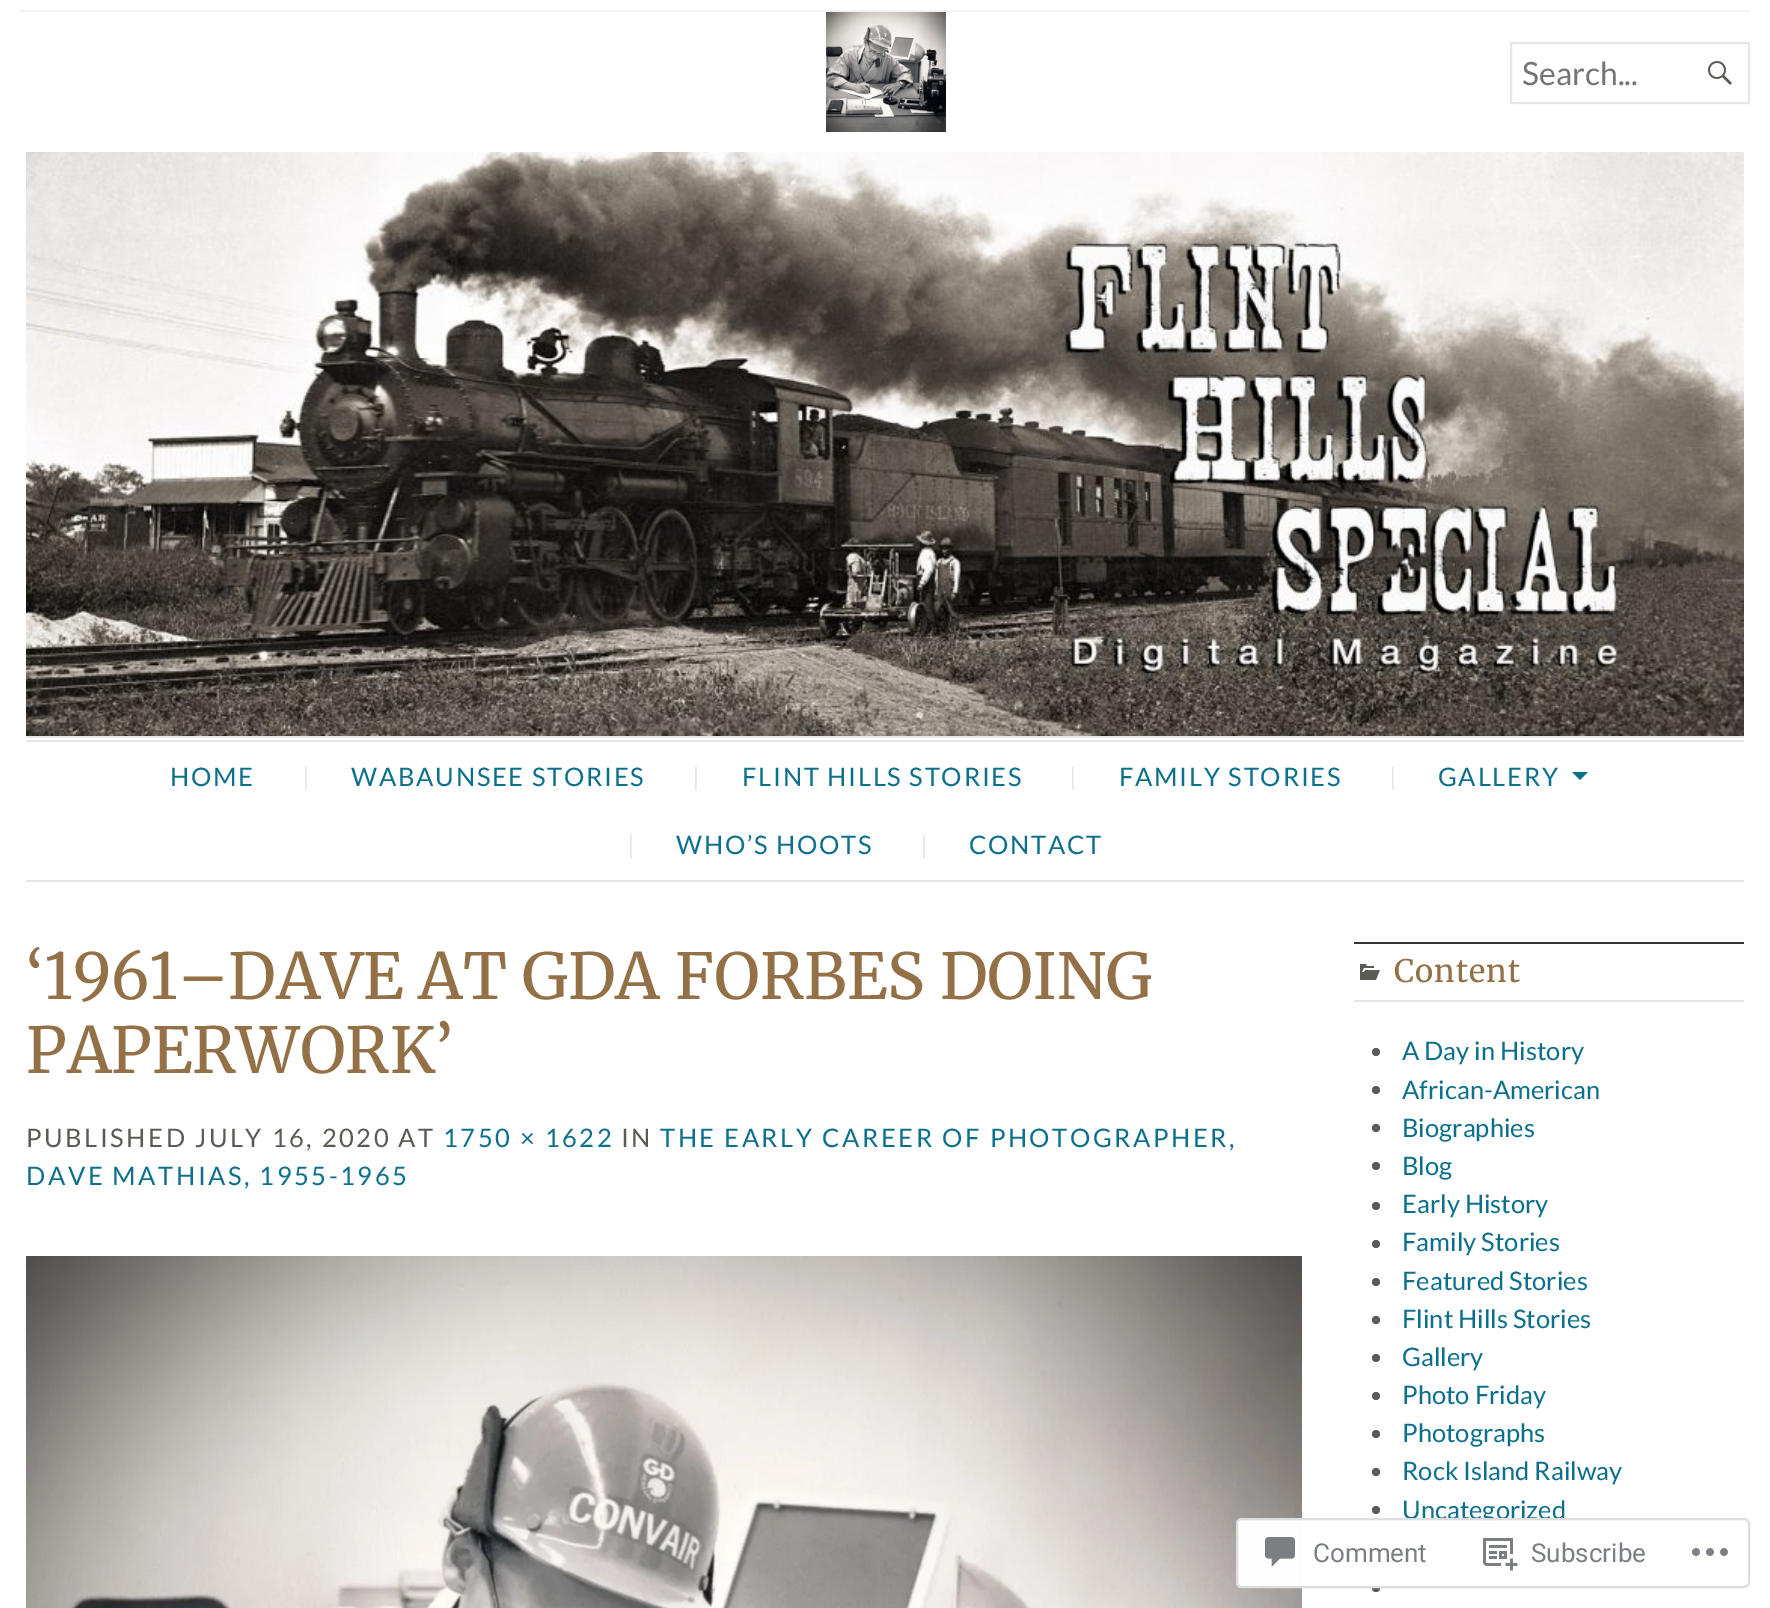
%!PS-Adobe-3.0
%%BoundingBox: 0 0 1770 1608
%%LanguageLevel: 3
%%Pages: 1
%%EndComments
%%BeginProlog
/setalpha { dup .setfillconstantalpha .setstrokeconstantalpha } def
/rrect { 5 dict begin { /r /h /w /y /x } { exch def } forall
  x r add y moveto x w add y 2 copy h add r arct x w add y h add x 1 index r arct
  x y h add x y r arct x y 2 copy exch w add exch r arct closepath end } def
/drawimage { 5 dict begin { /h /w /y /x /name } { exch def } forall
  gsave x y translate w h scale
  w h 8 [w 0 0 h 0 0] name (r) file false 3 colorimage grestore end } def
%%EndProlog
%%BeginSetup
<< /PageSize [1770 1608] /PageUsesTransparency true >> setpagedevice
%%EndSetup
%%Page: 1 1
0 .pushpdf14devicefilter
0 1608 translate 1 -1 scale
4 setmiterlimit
1 setgray
0 0 1770 1608 rectfill
0.949 setgray
20 10 1730 2 rectfill
(images/1.raw) 826 12 120 120 drawimage
0.902 setgray
2 setlinewidth
1511 43 238 60 rectstroke
(images/2.raw) 1708 61 24 24 drawimage
(images/3.raw) 26 152 1718 584 drawimage
26 736 1718 2 rectfill
26 740 1718 2 rectfill
26 880 1718 2 rectfill
0.047 0.439 0.549 setrgbcolor
newpath 1572 772 moveto 1588 772 lineto 1580 780 lineto closepath fill
(images/4.raw) 26 1256 1276 352 drawimage
0.2 setgray
1354 942 390 2 rectfill
0.902 setgray
1354 1000 390 2 rectfill
(images/5.raw) 1360 964 20 16 drawimage
0.357 0.357 0.337 setrgbcolor
newpath 1376 1052 4 0 360 arc closepath fill
newpath 1376 1090 4 0 360 arc closepath fill
newpath 1376 1128 4 0 360 arc closepath fill
newpath 1376 1166 4 0 360 arc closepath fill
newpath 1376 1206 4 0 360 arc closepath fill
newpath 1376 1244 4 0 360 arc closepath fill
newpath 1376 1282 4 0 360 arc closepath fill
newpath 1376 1320 4 0 360 arc closepath fill
newpath 1376 1358 4 0 360 arc closepath fill
newpath 1376 1396 4 0 360 arc closepath fill
newpath 1376 1434 4 0 360 arc closepath fill
newpath 1376 1472 4 0 360 arc closepath fill
newpath 1376 1510 4 0 360 arc closepath fill
newpath 1376 1548 4 0 360 arc closepath fill
newpath 1376 1588 4 0 360 arc closepath fill
/Lato-Regular [32 0 0 -32 0 0] selectfont
0.459 setgray
1522 85 moveto (Search...) show
/Lato-Regular [25.5 0 0 -25.5 0 0] selectfont
0.047 0.439 0.549 setrgbcolor
170 786 moveto 1.75 0 (HOME) ashow
0.902 setgray
302 786 moveto 1.75 0 (|) ashow
0.047 0.439 0.549 setrgbcolor
351 786 moveto 1.75 0 (WABAUNSEE STORIES) ashow
0.902 setgray
692 786 moveto 1.75 0 (|) ashow
0.047 0.439 0.549 setrgbcolor
742 786 moveto 1.75 0 (FLINT HILLS STORIES) ashow
0.902 setgray
1069 786 moveto 1.75 0 (|) ashow
0.047 0.439 0.549 setrgbcolor
1119 786 moveto 1.75 0 (FAMILY STORIES) ashow
0.902 setgray
1389 786 moveto 1.75 0 (|) ashow
0.047 0.439 0.549 setrgbcolor
1438 786 moveto 1.75 0 (GALLERY) ashow
0.902 setgray
627 854 moveto 1.75 0 (|) ashow
0.047 0.439 0.549 setrgbcolor
676 854 moveto 1.75 0 (WHO’S HOOTS) ashow
0.902 setgray
920 854 moveto 1.75 0 (|) ashow
0.047 0.439 0.549 setrgbcolor
969 854 moveto 1.75 0 (CONTACT) ashow
/Merriweather-Light [63.4 0 0 -63.4 0 0] selectfont
0.576 0.439 0.275 setrgbcolor
26 999 moveto (‘1961–DAVE AT GDA FORBES DOING) show
26 1073 moveto (PAPERWORK’) show
/Lato-Regular [25.5 0 0 -25.5 0 0] selectfont
0.357 0.357 0.337 setrgbcolor
26 1147 moveto 2.55 0 (PUBLISHED JULY 16, 2020 AT) ashow
0.047 0.439 0.549 setrgbcolor
443 1147 moveto 2.55 0 (1750 × 1622) ashow
0.357 0.357 0.337 setrgbcolor
621 1147 moveto 2.55 0 (IN) ashow
0.047 0.439 0.549 setrgbcolor
660 1147 moveto 2.55 0 (THE EARLY CAREER OF PHOTOGRAPHER,) ashow
26 1185 moveto 2.55 0 (DAVE MATHIAS, 1955-1965) ashow
/Merriweather-Light [31 0 0 -31 0 0] selectfont
0.576 0.439 0.275 setrgbcolor
1394 982 moveto 1 0 (Content) ashow
/Lato-Regular [25.5 0 0 -25.5 0 0] selectfont
0.047 0.439 0.549 setrgbcolor
1402 1060 moveto (A Day in History) show
1402 1099 moveto (African-American) show
1402 1137 moveto (Biographies) show
1402 1175 moveto (Blog) show
1402 1213 moveto (Early History) show
1402 1251 moveto (Family Stories) show
1402 1290 moveto (Featured Stories) show
1402 1328 moveto (Flint Hills Stories) show
1402 1366 moveto (Gallery) show
1402 1404 moveto (Photo Friday) show
1402 1442 moveto (Photographs) show
1402 1480 moveto (Rock Island Railway) show
1402 1519 moveto (Uncategorized) show
0.98 setalpha
1 setgray
1236 1518 514 70 6 rrect fill
0.863 0.863 0.871 setrgbcolor
1237 1519 512 68 5 rrect stroke
1 setalpha
(images/6.raw) 1265 1537 30 30 drawimage
/Roboto-Regular [26 0 0 -26 0 0] selectfont
0.482 0.498 0.518 setrgbcolor
1313 1562 moveto (Comment) show
(images/7.raw) 1483 1538 35 33 drawimage
1531 1562 moveto (Subscribe) show
(images/8.raw) 1692 1548 36 8 drawimage
.poppdf14devicefilter showpage
%%EOF
